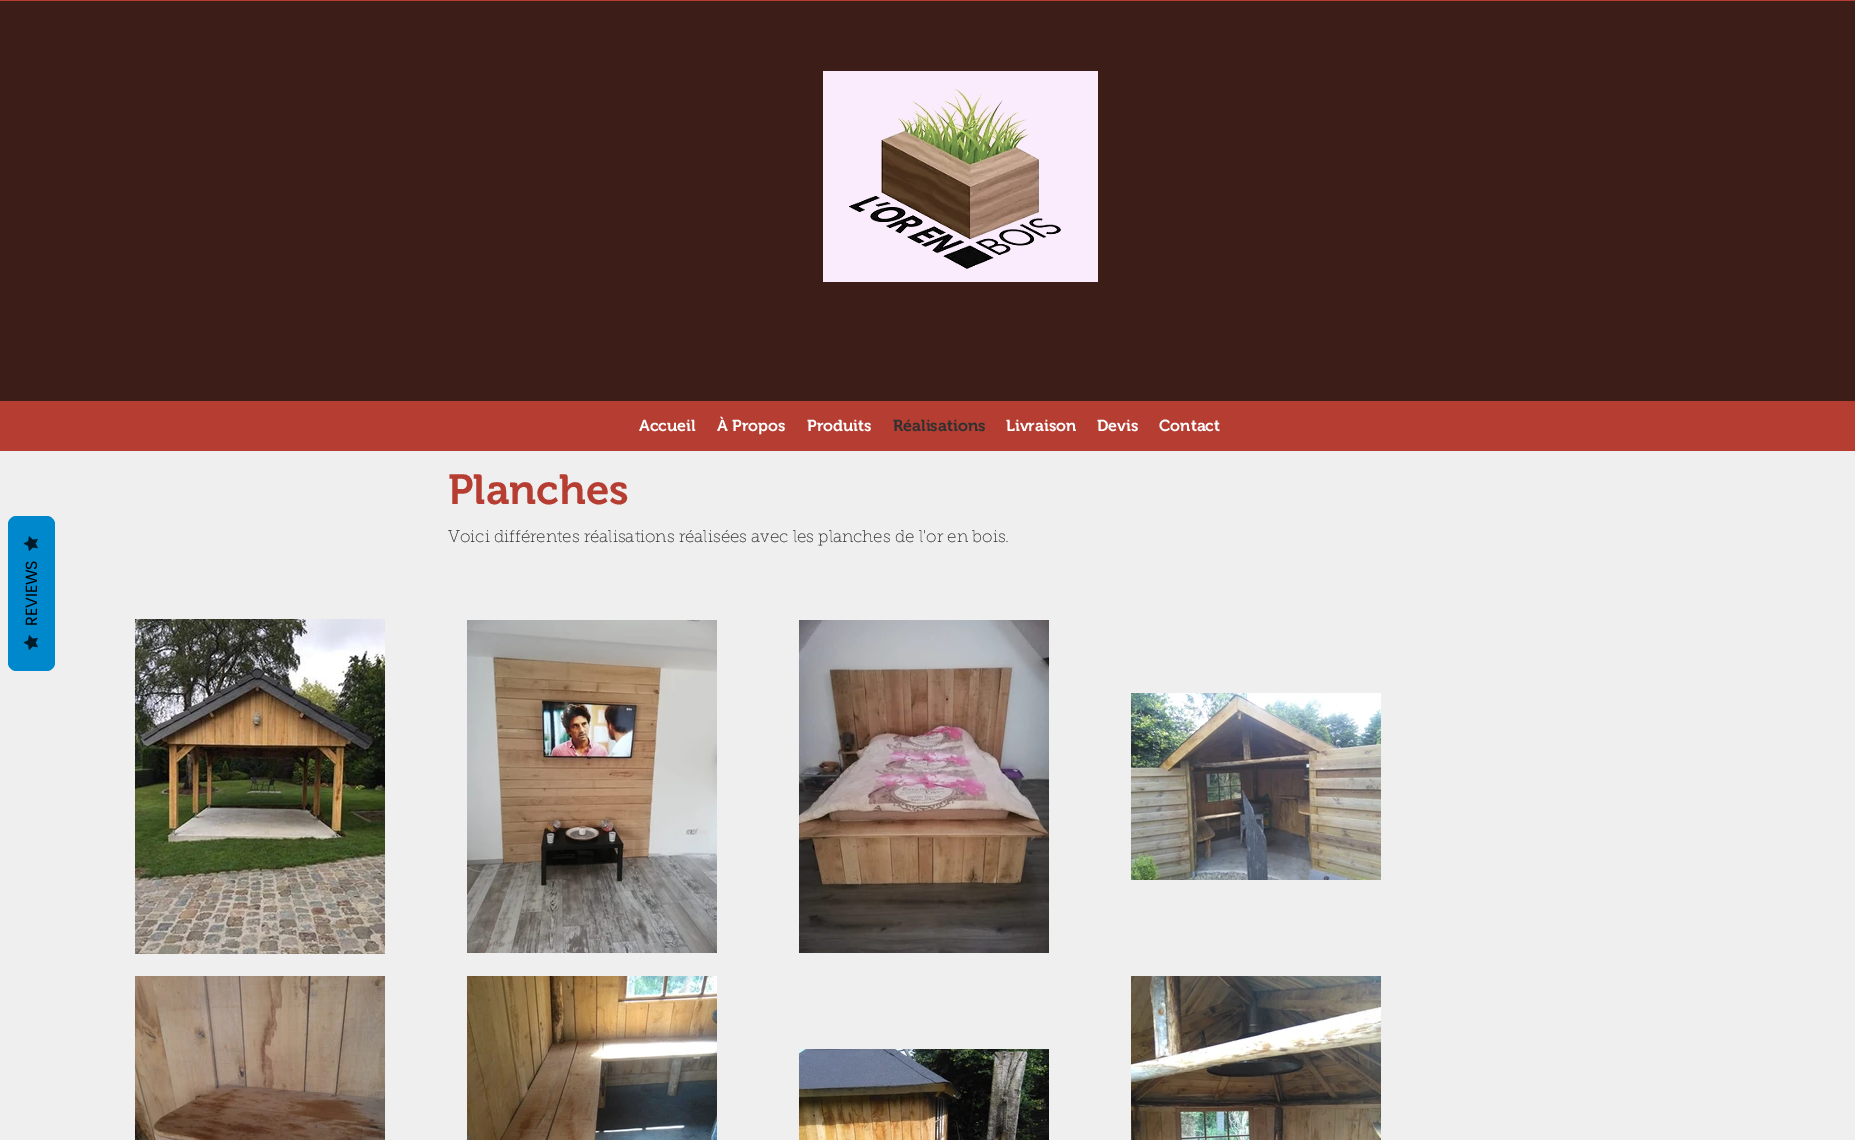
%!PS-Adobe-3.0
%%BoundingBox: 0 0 1855 1140
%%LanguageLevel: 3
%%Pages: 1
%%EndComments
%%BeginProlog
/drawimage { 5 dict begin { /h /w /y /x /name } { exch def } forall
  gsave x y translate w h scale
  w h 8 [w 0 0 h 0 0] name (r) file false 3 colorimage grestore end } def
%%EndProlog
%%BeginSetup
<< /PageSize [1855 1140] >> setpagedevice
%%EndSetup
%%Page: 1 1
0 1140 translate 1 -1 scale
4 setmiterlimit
0.937 setgray
0 0 1855 1140 rectfill
0.714 0.239 0.196 setrgbcolor
0 0 1855 451 rectfill
0.235 0.114 0.09 setrgbcolor
0 1 1855 400 rectfill
(images/1.raw) 823 71 275 211 drawimage
(images/2.raw) 135 619 250 335 drawimage
(images/3.raw) 467 620 250 333 drawimage
(images/4.raw) 799 620 250 333 drawimage
(images/5.raw) 1131 693 250 187 drawimage
(images/6.raw) 135 976 250 164 drawimage
(images/7.raw) 467 976 250 164 drawimage
(images/8.raw) 799 1049 250 91 drawimage
(images/9.raw) 1131 976 250 164 drawimage
0 0.533 0.8 setrgbcolor
newpath 8 663 moveto 8 524 lineto 8 520 12 516 16 516 curveto 47 516 lineto 51 516 55 520 55 524 curveto 55 663 lineto 55 667 51 671 47 671 curveto 16 671 lineto 12 671 8 667 8 663 curveto closepath fill
(images/10.raw) 23 536 15 15 drawimage
(images/10.raw) 23 635 15 15 drawimage
/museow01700-SemiBold [16 0 0 -16 0 0] selectfont
1 setgray
639 431 moveto (Accueil) show
717 431 moveto (À Propos) show
807 431 moveto (Produits) show
0.188 setgray
893 431 moveto (Réalisations) show
1 setgray
1006 431 moveto (Livraison) show
1097 431 moveto (Devis) show
1159 431 moveto (Contact) show
/museow01700-SemiBold [42 0 0 -42 0 0] selectfont
0.714 0.239 0.196 setrgbcolor
448 504 moveto (Planches) show
/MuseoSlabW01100-Thin [17 0 0 -17 0 0] selectfont
0.188 setgray
448 542 moveto (Voici différentes réalisations réalisées avec les planches de l'or en bois.) show
/Poppins-Regular [16 0 0 -16 0 0] selectfont
0 setgray
gsave 37 626 translate -90 rotate 0 0 moveto (REVIEWS) show grestore
showpage
%%EOF
